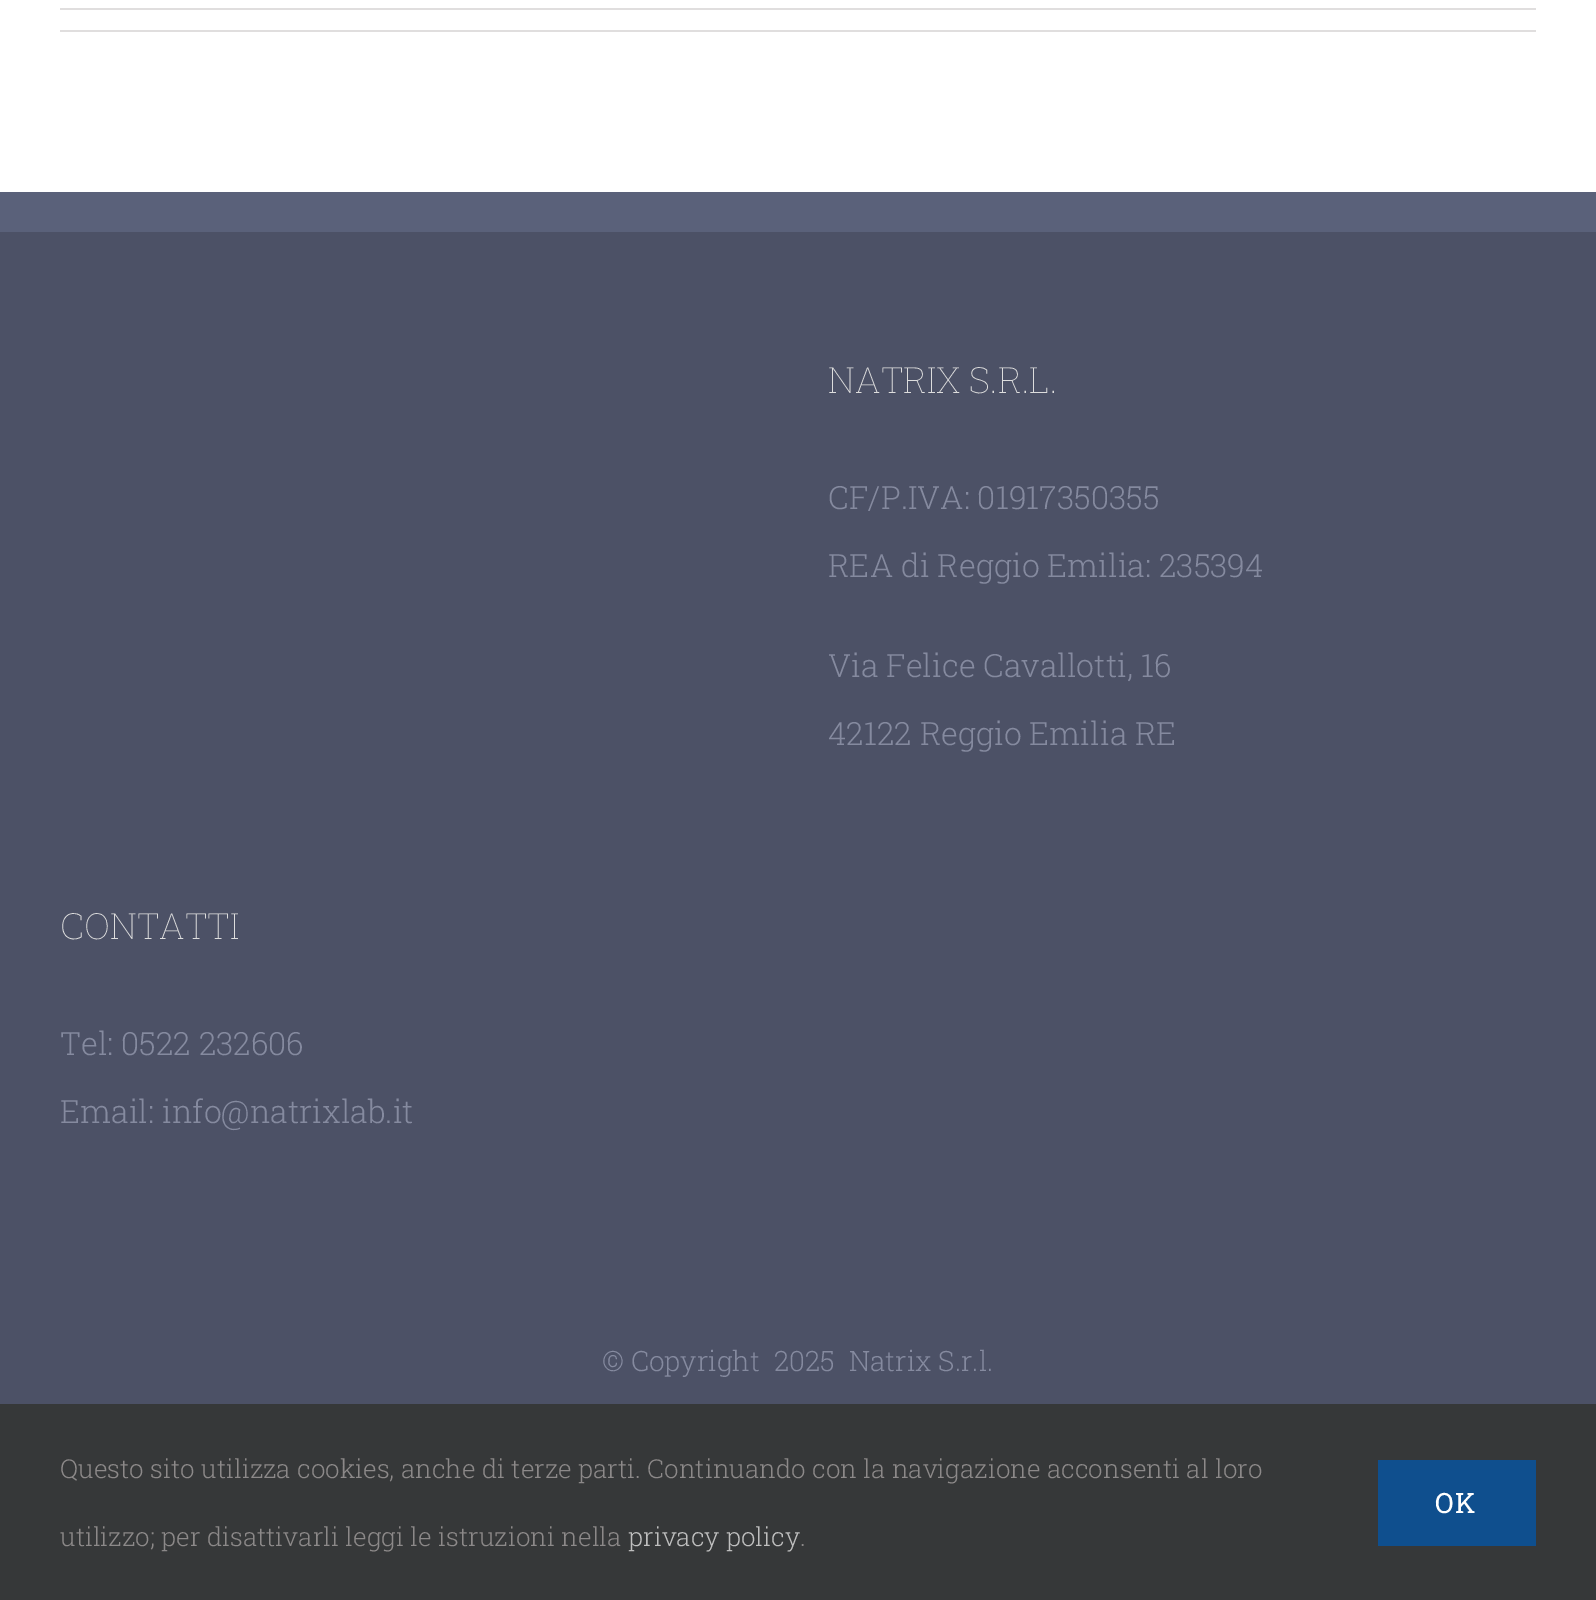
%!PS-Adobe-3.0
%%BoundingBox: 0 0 1596 1600
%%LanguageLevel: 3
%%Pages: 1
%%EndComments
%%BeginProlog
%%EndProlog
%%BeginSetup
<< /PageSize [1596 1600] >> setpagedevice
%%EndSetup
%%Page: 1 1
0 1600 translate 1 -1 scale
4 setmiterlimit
1 setgray
0 0 1596 1600 rectfill
0.878 0.871 0.871 setrgbcolor
60 8 1476 2 rectfill
60 30 1476 2 rectfill
0.298 0.318 0.4 setrgbcolor
0 232 1596 1172 rectfill
0.353 0.38 0.478 setrgbcolor
0 192 1596 40 rectfill
0.212 0.22 0.224 setrgbcolor
0 1404 1596 196 rectfill
0.059 0.31 0.557 setrgbcolor
1378 1460 158 86 rectfill
/RobotoSlab-Thin [36 0 0 -36 0 0] selectfont
0.867 setgray
828 393 moveto (NATRIX S.R.L.) show
/RobotoSlab-Light [32 0 0 -32 0 0] selectfont
0.522 0.541 0.624 setrgbcolor
828 509 moveto (CF/P.IVA: 01917350355) show
828 577 moveto (REA di Reggio Emilia: 235394) show
828 677 moveto (Via Felice Cavallotti, 16) show
828 745 moveto (42122 Reggio Emilia RE) show
/RobotoSlab-Thin [36 0 0 -36 0 0] selectfont
0.867 setgray
60 939 moveto (CONTATTI) show
/RobotoSlab-Light [32 0 0 -32 0 0] selectfont
0.522 0.541 0.624 setrgbcolor
60 1055 moveto (Tel: 0522 232606) show
60 1123 moveto (Email: info@natrixlab.it) show
/RobotoSlab-Light [28 0 0 -28 0 0] selectfont
602 1371 moveto (© Copyright) show
774 1371 moveto (2025  Natrix S.r.l.) show
/RobotoSlab-Light [26 0 0 -26 0 0] selectfont
0.549 0.537 0.537 setrgbcolor
60 1478 moveto (Questo sito utilizza cookies, anche di terze parti. Continuando con la navigazione acconsenti al loro) show
60 1546 moveto (utilizzo; per disattivarli leggi le istruzioni nella) show
0.749 setgray
628 1546 moveto (privacy policy) show
0.549 0.537 0.537 setrgbcolor
800 1546 moveto (.) show
/RobotoSlab-Regular [28 0 0 -28 0 0] selectfont
1 setgray
1435 1513 moveto 2 0 (OK) ashow
showpage
%%EOF
